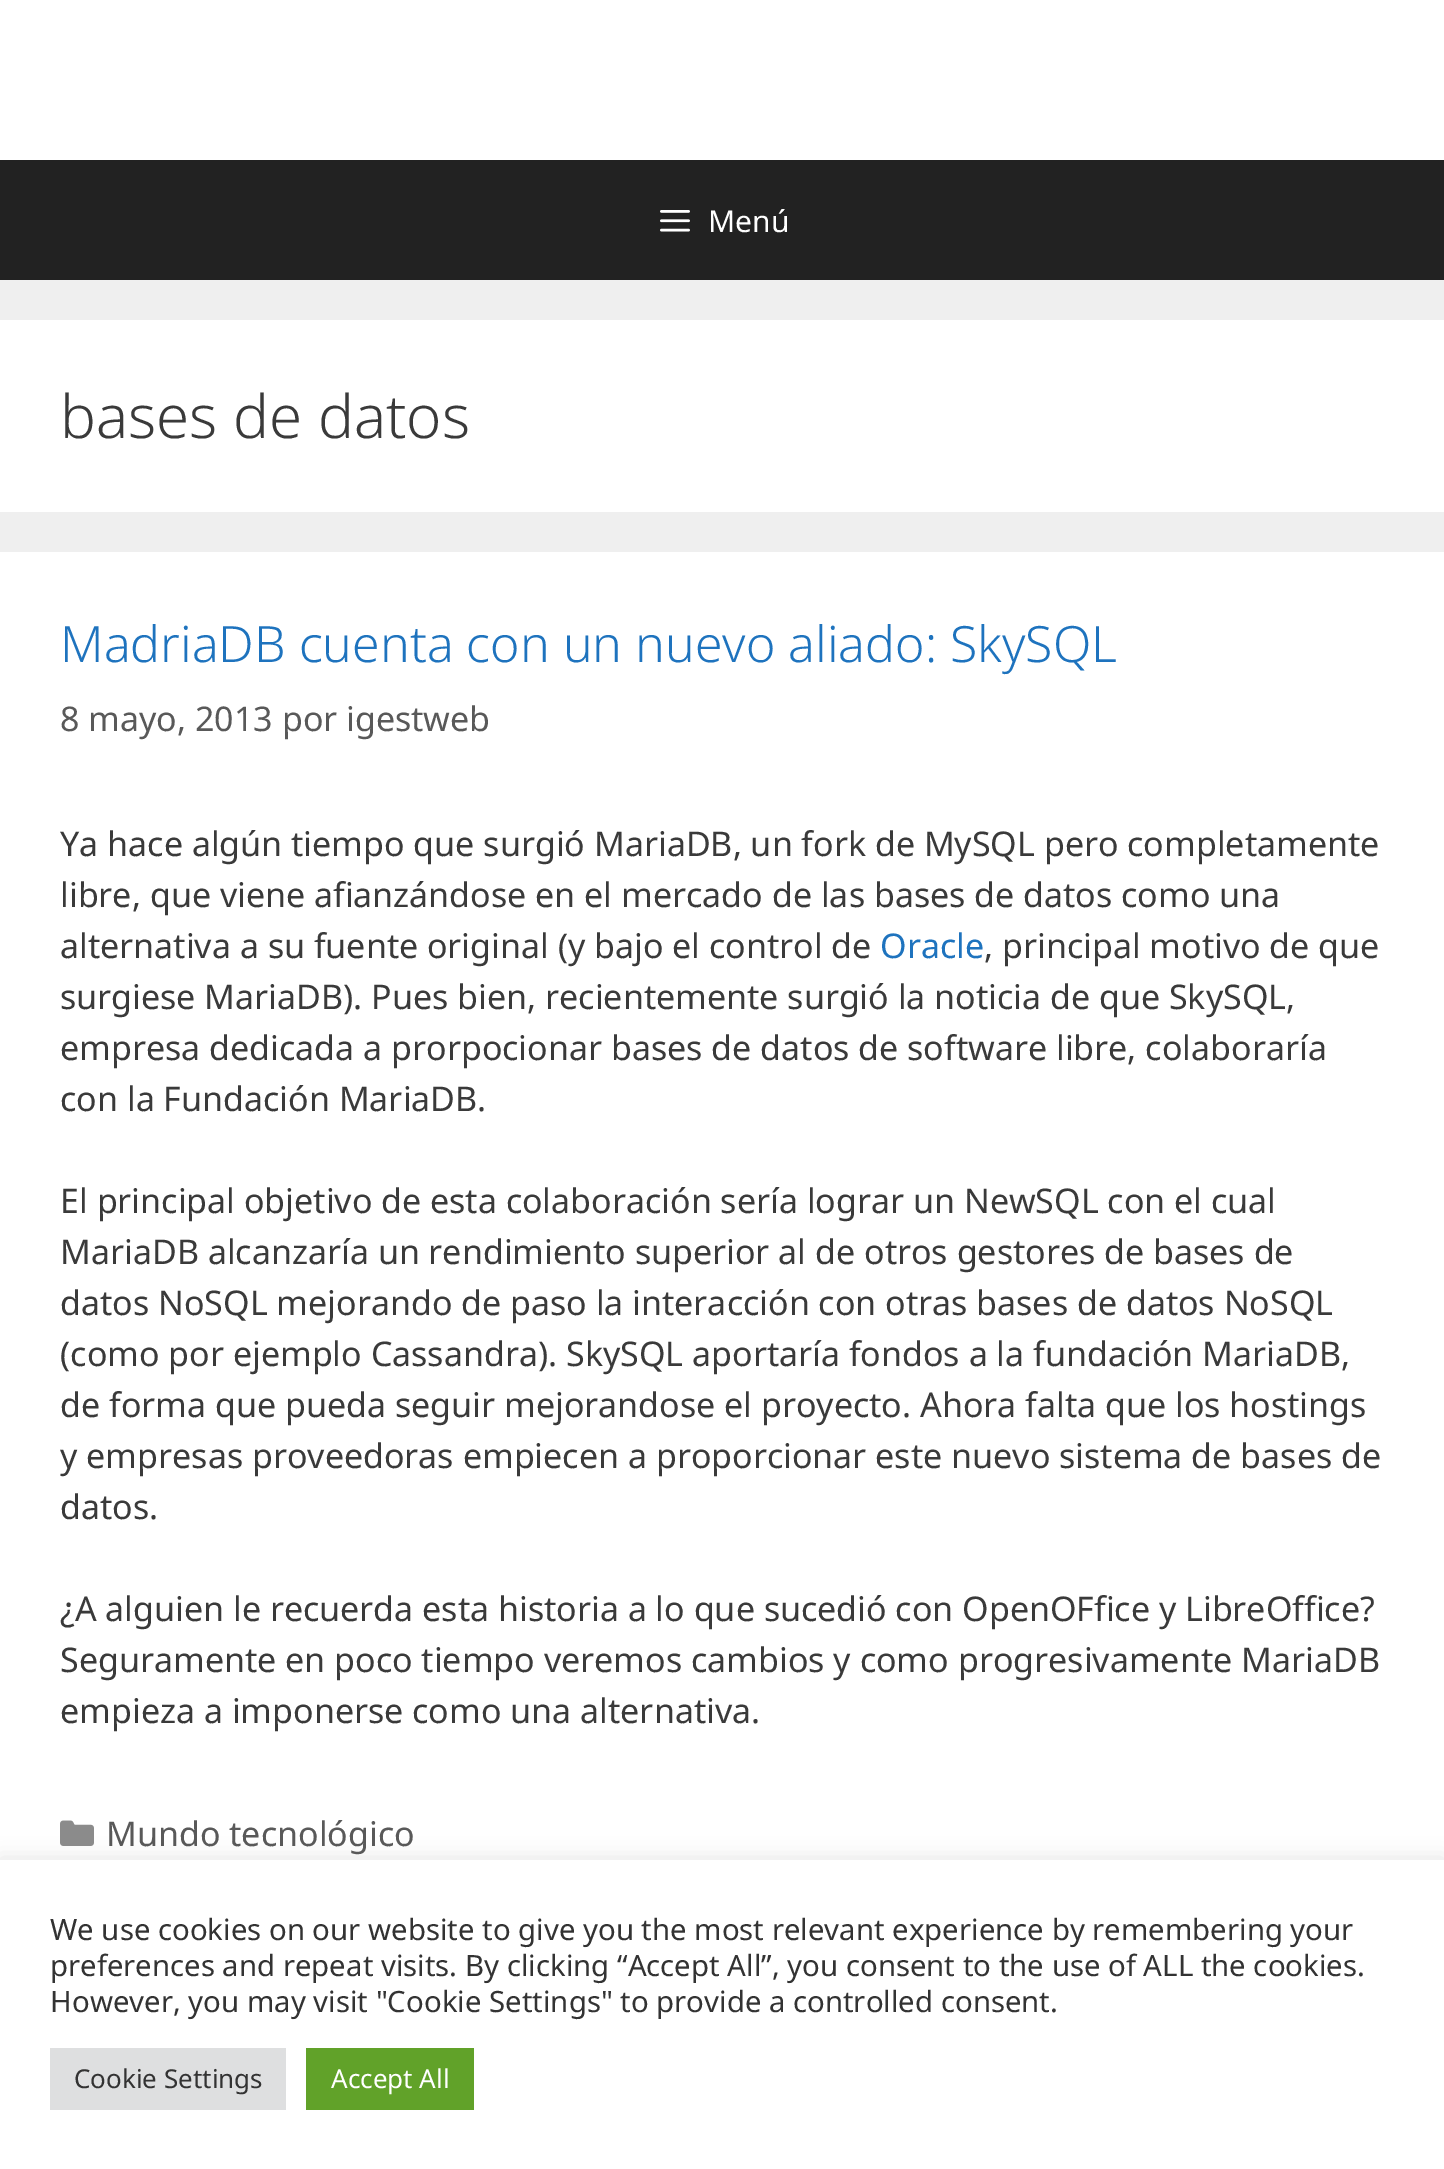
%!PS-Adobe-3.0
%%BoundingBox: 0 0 1444 2169
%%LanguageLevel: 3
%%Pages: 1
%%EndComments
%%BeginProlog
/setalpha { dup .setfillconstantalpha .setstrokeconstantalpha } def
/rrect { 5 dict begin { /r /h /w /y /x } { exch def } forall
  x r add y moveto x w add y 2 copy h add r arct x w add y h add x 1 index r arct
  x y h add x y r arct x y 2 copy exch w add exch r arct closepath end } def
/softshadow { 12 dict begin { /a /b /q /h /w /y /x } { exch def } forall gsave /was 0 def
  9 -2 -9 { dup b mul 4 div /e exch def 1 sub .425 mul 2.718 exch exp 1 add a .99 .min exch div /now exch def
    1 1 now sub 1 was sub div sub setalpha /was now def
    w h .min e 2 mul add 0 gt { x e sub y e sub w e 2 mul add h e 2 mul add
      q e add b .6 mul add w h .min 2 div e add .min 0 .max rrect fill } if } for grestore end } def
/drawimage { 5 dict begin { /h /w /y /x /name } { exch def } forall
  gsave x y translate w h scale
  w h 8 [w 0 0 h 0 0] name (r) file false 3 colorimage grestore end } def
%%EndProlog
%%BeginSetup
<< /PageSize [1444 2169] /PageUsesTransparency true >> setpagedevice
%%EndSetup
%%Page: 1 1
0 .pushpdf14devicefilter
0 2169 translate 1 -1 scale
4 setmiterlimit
0.937 setgray
0 0 1444 2169 rectfill
1 setgray
0 0 1444 160 rectfill
0.133 setgray
0 160 1444 120 rectfill
(images/1.raw) 660 210 30 22 drawimage
1 setgray
0 320 1444 192 rectfill
0 552 1444 1308 rectfill
(images/2.raw) 60 1820 34 26 drawimage
0.675 0.671 0.671 setrgbcolor
0 1858 1444 310 0 10 0.3 softshadow
1 setgray
0 1860 1444 309 rectfill
0.871 0.875 0.878 setrgbcolor
50 2048 236 62 rectfill
0.38 0.635 0.161 setrgbcolor
306 2048 168 62 rectfill
/NotoSans-Regular [30 0 0 -30 0 0] selectfont
1 setgray
708 232 moveto (Menú) show
/NotoSans-Light [60 0 0 -60 0 0] selectfont
0.227 setgray
60 438 moveto (bases de datos) show
/NotoSans-Light [50 0 0 -50 0 0] selectfont
0.118 0.451 0.745 setrgbcolor
60 662 moveto (MadriaDB cuenta con un nuevo aliado: SkySQL) show
/NotoSans-Regular [34 0 0 -34 0 0] selectfont
0.349 setgray
60 731 moveto (8 mayo, 2013 por igestweb) show
0.227 setgray
60 856 moveto (Ya hace algún tiempo que surgió MariaDB, un fork de MySQL pero completamente) show
60 907 moveto (libre, que viene afianzándose en el mercado de las bases de datos como una) show
60 958 moveto (alternativa a su fuente original \(y bajo el control de) show
0.118 0.451 0.745 setrgbcolor
880 958 moveto (Oracle) show
0.227 setgray
984 958 moveto (, principal motivo de que) show
60 1009 moveto (surgiese MariaDB\). Pues bien, recientemente surgió la noticia de que SkySQL,) show
60 1060 moveto (empresa dedicada a prorpocionar bases de datos de software libre, colaboraría) show
60 1111 moveto (con la Fundación MariaDB.) show
60 1213 moveto (El principal objetivo de esta colaboración sería lograr un NewSQL con el cual) show
60 1264 moveto (MariaDB alcanzaría un rendimiento superior al de otros gestores de bases de) show
60 1315 moveto (datos NoSQL mejorando de paso la interacción con otras bases de datos NoSQL) show
60 1366 moveto (\(como por ejemplo Cassandra\). SkySQL aportaría fondos a la fundación MariaDB,) show
60 1417 moveto (de forma que pueda seguir mejorandose el proyecto. Ahora falta que los hostings) show
60 1468 moveto (y empresas proveedoras empiecen a proporcionar este nuevo sistema de bases de) show
60 1519 moveto (datos.) show
60 1621 moveto (¿A alguien le recuerda esta historia a lo que sucedió con OpenOFfice y LibreOffice?) show
60 1672 moveto (Seguramente en poco tiempo veremos cambios y como progresivamente MariaDB) show
60 1723 moveto (empieza a imponerse como una alternativa.) show
0.349 setgray
106 1846 moveto (Mundo tecnológico) show
/NotoSans-Regular [29.35 0 0 -29.35 0 0] selectfont
0.2 setgray
50 1940 moveto (We use cookies on our website to give you the most relevant experience by remembering your) show
50 1976 moveto (preferences and repeat visits. By clicking “Accept All”, you consent to the use of ALL the cookies.) show
50 2012 moveto (However, you may visit "Cookie Settings" to provide a controlled consent.) show
/NotoSans-Regular [26 0 0 -26 0 0] selectfont
74 2088 moveto (Cookie Settings) show
1 setgray
331 2088 moveto (Accept All) show
.poppdf14devicefilter showpage
%%EOF
